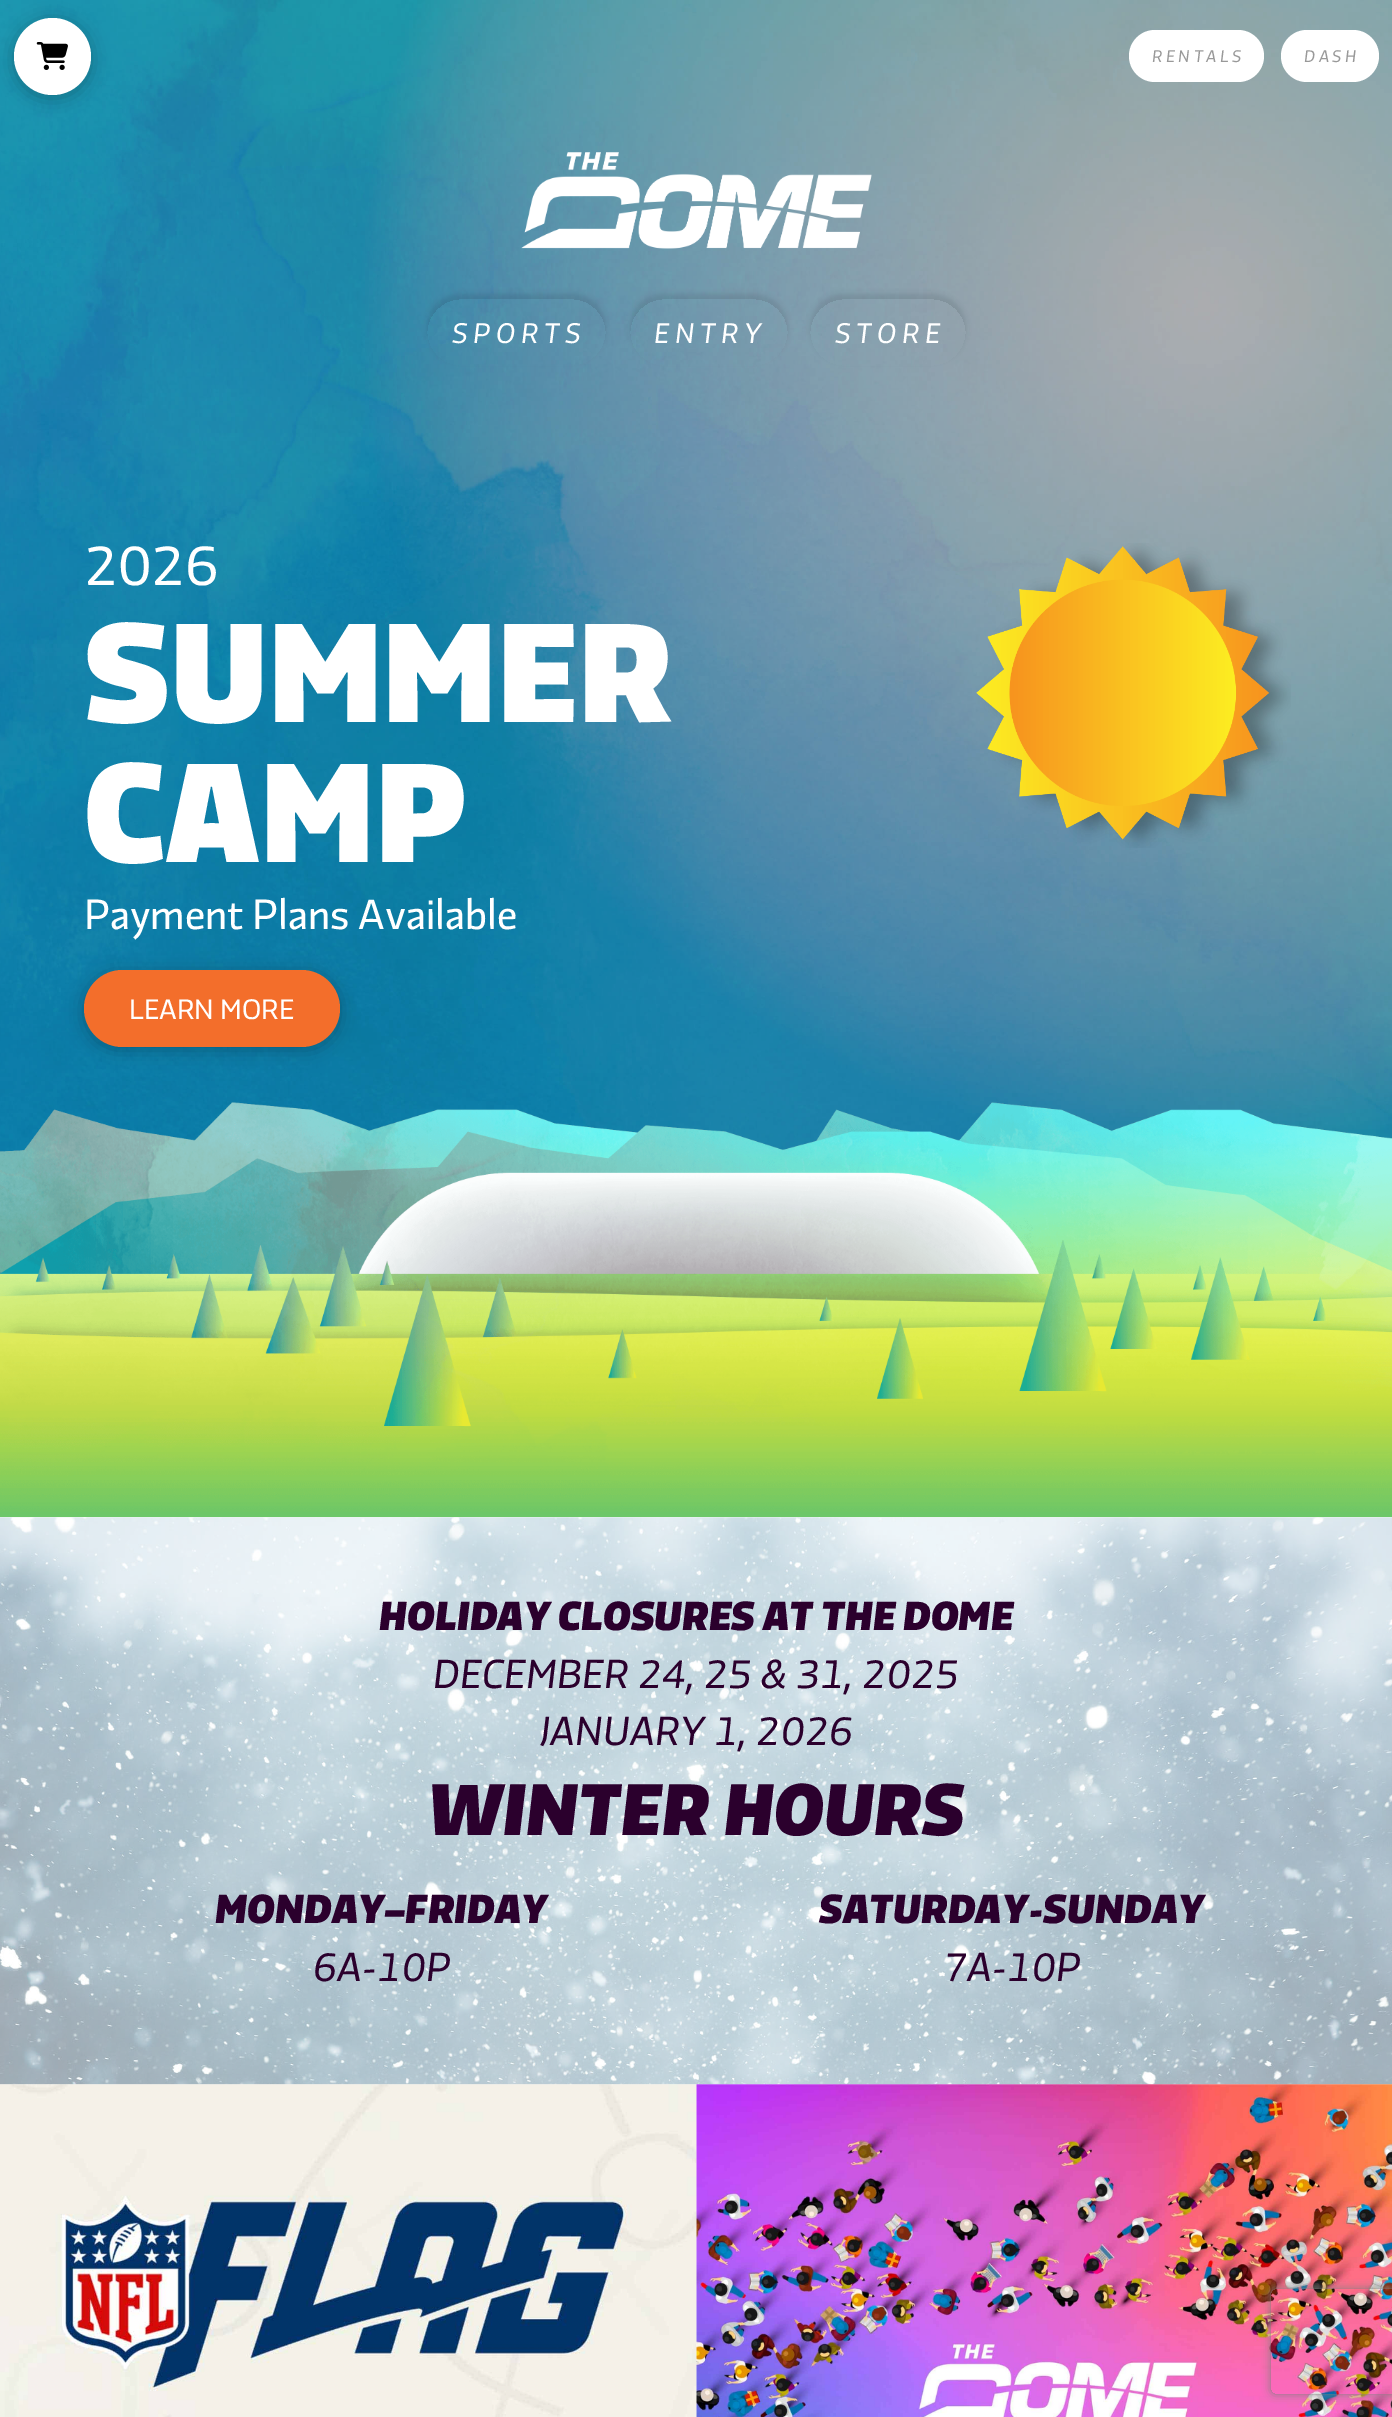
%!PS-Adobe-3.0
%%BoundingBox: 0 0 1392 2417
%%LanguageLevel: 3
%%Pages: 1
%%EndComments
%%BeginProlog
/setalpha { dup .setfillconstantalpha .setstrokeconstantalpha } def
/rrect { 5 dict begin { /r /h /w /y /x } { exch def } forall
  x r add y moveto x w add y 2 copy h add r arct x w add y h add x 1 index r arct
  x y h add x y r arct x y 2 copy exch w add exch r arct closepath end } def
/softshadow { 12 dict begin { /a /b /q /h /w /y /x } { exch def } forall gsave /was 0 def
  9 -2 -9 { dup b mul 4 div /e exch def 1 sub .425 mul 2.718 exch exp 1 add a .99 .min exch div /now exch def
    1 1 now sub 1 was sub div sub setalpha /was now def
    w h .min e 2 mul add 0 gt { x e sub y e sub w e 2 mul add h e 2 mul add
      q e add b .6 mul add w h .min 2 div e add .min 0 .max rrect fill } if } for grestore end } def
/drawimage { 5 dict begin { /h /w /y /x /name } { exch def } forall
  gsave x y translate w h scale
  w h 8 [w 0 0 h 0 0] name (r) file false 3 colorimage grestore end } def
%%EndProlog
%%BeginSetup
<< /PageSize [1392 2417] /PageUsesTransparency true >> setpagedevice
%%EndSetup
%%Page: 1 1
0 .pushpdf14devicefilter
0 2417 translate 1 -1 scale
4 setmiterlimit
1 setgray
0 0 1392 2417 rectfill
(images/3.raw) 0 0 1392 1518 drawimage
0 setgray
14 21 77 77 38.5 9 0.25 softshadow
1 setgray
newpath 52.5 56.5 38.5 0 360 arc closepath fill
(images/1.raw) 36 42 32 28 drawimage
1129 30 135 52 26 rrect fill
1281 30 98 52 26 rrect fill
(images/2.raw) 521 152 351 97 drawimage
gsave
newpath 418 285 moveto 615 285 lineto 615 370 lineto 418 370 lineto closepath 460.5 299 moveto 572.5 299 lineto 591 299 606 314 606 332.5 curveto 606 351 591 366 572.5 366 curveto 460.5 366 lineto 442 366 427 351 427 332.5 curveto 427 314 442 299 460.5 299 curveto closepath eoclip newpath
0 setgray
427 294 179 67 33.5 2.5 0.09 softshadow
grestore
gsave
newpath 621 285 moveto 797 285 lineto 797 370 lineto 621 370 lineto closepath 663.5 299 moveto 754.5 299 lineto 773 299 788 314 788 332.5 curveto 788 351 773 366 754.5 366 curveto 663.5 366 lineto 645 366 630 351 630 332.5 curveto 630 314 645 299 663.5 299 curveto closepath eoclip newpath
0 setgray
630 294 158 67 33.5 2.5 0.09 softshadow
grestore
gsave
newpath 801 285 moveto 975 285 lineto 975 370 lineto 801 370 lineto closepath 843.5 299 moveto 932.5 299 lineto 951 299 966 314 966 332.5 curveto 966 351 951 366 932.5 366 curveto 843.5 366 lineto 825 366 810 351 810 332.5 curveto 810 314 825 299 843.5 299 curveto closepath eoclip newpath
0 setgray
810 294 156 67 33.5 2.5 0.09 softshadow
grestore
0 setgray
84 973 256 77 38.5 9 0.25 softshadow
0.953 0.431 0.169 setrgbcolor
84 970 256 77 38.5 rrect fill
(images/4.raw) 976 543 315 305 drawimage
(images/5.raw) 0 1102 1392 416 drawimage
(images/7.raw) 0 2084 697 333 drawimage
(images/8.raw) 696 2084 696 333 drawimage
(images/6.raw) 0 1517 1392 568 drawimage
0.58 setalpha
1 setgray
0 1517 1392 567 rectfill
gsave
newpath 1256 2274 moveto 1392 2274 lineto 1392 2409 lineto 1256 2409 lineto closepath 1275 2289 moveto 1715 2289 lineto 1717 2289 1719 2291 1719 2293 curveto 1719 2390 lineto 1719 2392 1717 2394 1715 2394 curveto 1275 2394 lineto 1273 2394 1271 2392 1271 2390 curveto 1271 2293 lineto 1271 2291 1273 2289 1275 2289 curveto closepath eoclip newpath
1 setalpha
0.502 setgray
1271 2289 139 105 4 4.5 1 softshadow
grestore
/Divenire-Italic [16.75 0 0 -16.75 0 0] selectfont
1 setalpha
0.6 setgray
1152 62 moveto 3.5 0 (RENTALS) ashow
1304 62 moveto 3.5 0 (DASH) ashow
/Divenire-Italic [28.25 0 0 -28.25 0 0] selectfont
1 setgray
452 343 moveto 5.5 0 (SPORTS) ashow
654 343 moveto 5.5 0 (ENTRY) ashow
835 343 moveto 5.5 0 (STORE) ashow
/Divenire-Regular [56 0 0 -56 0 0] selectfont
84 585 moveto (2026) show
/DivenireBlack-Black [140 0 0 -140 0 0] selectfont
84 722 moveto (SUMMER) show
84 862 moveto (CAMP) show
/Divenire-Regular [42 0 0 -42 0 0] selectfont
84 929 moveto (Payment Plans Available) show
/Divenire-Regular [28 0 0 -28 0 0] selectfont
129 1019 moveto (LEARN MORE) show
/DivenireBlack-BlackItalic [40.3 0 0 -40.3 0 0] selectfont
0.169 0 0.176 setrgbcolor
379 1630 moveto (HOLIDAY CLOSURES AT THE DOME) show
/Divenire-Italic [40.3 0 0 -40.3 0 0] selectfont
433 1688 moveto (DECEMBER 24, 25 & 31, 2025) show
540 1745 moveto (JANUARY 1, 2026) show
/DivenireBlack-BlackItalic [72.5 0 0 -72.5 0 0] selectfont
428 1835 moveto (WINTER HOURS) show
/DivenireBlack-BlackItalic [40.3 0 0 -40.3 0 0] selectfont
215 1923 moveto (MONDAY–FRIDAY) show
/Divenire-Italic [40.3 0 0 -40.3 0 0] selectfont
313 1981 moveto (6A-10P) show
/DivenireBlack-BlackItalic [40.3 0 0 -40.3 0 0] selectfont
819 1923 moveto (SATURDAY-SUNDAY) show
/Divenire-Italic [40.3 0 0 -40.3 0 0] selectfont
943 1981 moveto (7A-10P) show
.poppdf14devicefilter showpage
%%EOF
